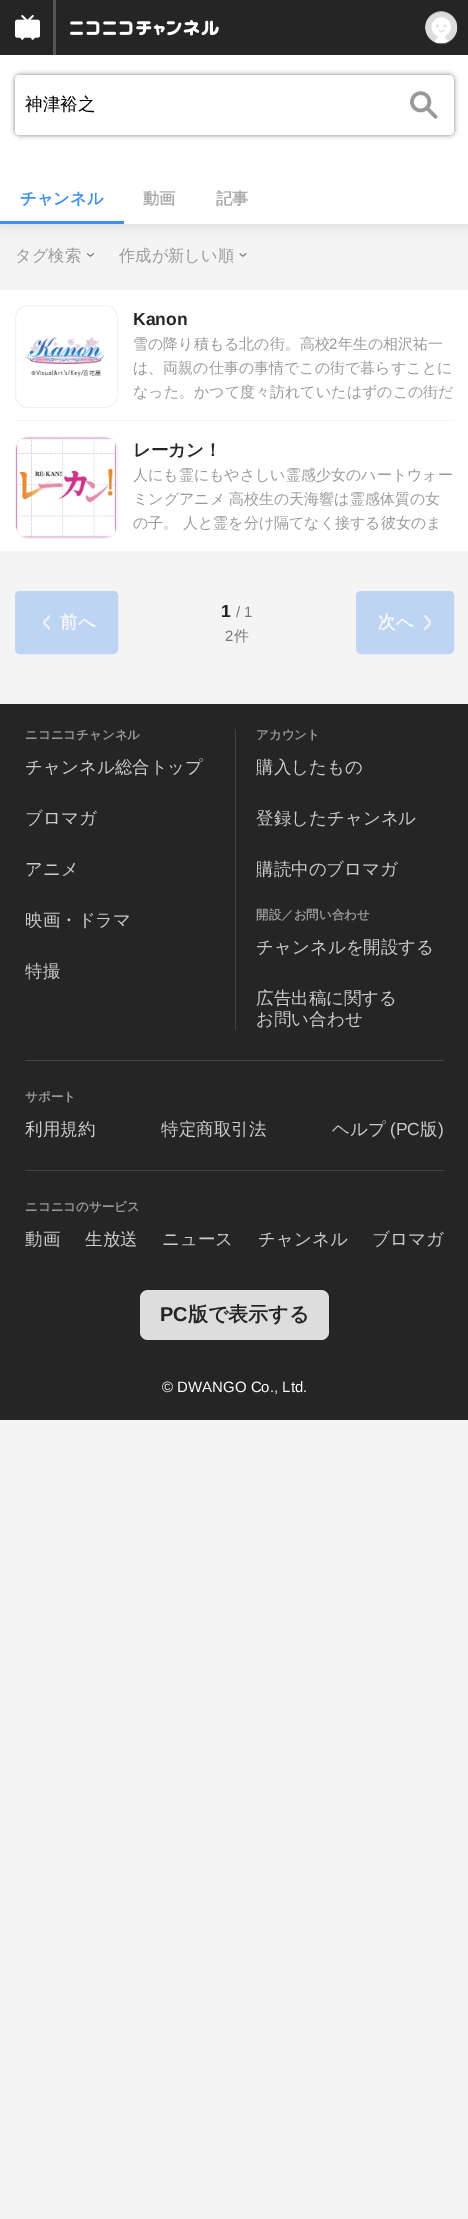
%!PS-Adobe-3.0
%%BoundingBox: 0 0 468 2219
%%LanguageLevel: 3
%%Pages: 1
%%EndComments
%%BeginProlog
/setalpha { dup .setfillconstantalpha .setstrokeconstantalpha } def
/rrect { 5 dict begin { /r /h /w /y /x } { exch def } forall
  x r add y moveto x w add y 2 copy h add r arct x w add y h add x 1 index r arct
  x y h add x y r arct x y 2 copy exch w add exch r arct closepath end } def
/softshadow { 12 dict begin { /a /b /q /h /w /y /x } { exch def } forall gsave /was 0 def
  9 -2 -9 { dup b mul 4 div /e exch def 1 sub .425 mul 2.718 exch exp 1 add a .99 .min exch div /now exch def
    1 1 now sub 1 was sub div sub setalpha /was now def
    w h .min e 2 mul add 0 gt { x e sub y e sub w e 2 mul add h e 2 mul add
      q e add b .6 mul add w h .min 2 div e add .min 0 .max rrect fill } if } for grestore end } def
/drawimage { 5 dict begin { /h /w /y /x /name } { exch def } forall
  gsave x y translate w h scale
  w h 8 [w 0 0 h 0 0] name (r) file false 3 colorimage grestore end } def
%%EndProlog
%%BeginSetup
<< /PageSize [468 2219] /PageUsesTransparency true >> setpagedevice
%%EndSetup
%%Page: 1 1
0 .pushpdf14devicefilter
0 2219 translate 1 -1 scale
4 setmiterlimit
0.957 setgray
0 0 468 2219 rectfill
0.49 setgray
0 58 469 168 0 6 0.2 softshadow
0.145 setgray
0 0 468 55 rectfill
(images/1.raw) 15 15 25 25 drawimage
0.333 setgray
53 0 3 55 rectfill
(images/2.raw) 70 20 149 16 drawimage
(images/3.raw) 425 11 33 34 drawimage
1 setgray
0 55 468 169 rectfill
0 setgray
15 75 439 60 5 2.5 0.5 softshadow
1 setgray
15 75 439 60 5 rrect fill
newpath 20 75 moveto 394 75 lineto 394 135 lineto 20 135 lineto 17 135 15 133 15 130 curveto 15 80 lineto 15 77 17 75 20 75 curveto closepath fill
(images/4.raw) 410 91 28 28 drawimage
0.243 0.557 0.929 setrgbcolor
0 221 124 3 rectfill
(images/5.raw) 87 253 7 4 drawimage
(images/6.raw) 239 253 8 4 drawimage
1 setgray
0 290 468 261 rectfill
0.949 setgray
15.5 305.5 102 102 12.5 rrect stroke
(images/7.raw) 24 337 80 40 drawimage
0.961 setgray
15 420 439 1 rectfill
0.949 setgray
15.5 436.5 102 102 12.5 rrect stroke
(images/8.raw) 16 437 101 101 drawimage
0.741 0.835 0.949 setrgbcolor
16.5 592.5 100 60 3.5 rrect gsave fill grestore
3 setlinewidth
stroke
gsave
43 615 7 15 rectclip
0.922 0.941 0.965 setrgbcolor
2.1 setlinewidth
1 setlinecap
1 setlinejoin
newpath 50 629 moveto 43.5 622.5 lineto 50 616 lineto stroke
grestore
357.5 592.5 95 60 3.5 rrect gsave fill grestore
stroke
gsave
424 615 7 15 rectclip
0.922 0.941 0.965 setrgbcolor
2.1 setlinewidth
1 setlinecap
1 setlinejoin
newpath 425 629 moveto 431 622.5 lineto 425 616 lineto stroke
grestore
0.145 setgray
0 704 468 716 rectfill
0.267 setgray
235 729 1 301 rectfill
25 1060 419 1 rectfill
25 1170 419 1 rectfill
0.867 setgray
140 1290 189 50 8 rrect fill
/WenQuanYiZenHei-Medium [17.5 0 0 -17.5 0 0] selectfont
0 setgray
25 110 moveto (神津裕之) show
/WenQuanYiZenHei-Bold [16.25 0 0 -16.25 0 0] selectfont
0.243 0.557 0.929 setrgbcolor
20 204 moveto (チャンネル) show
0.667 setgray
143 204 moveto (動画) show
216 204 moveto (記事) show
/WenQuanYiZenHei-Medium [16.25 0 0 -16.25 0 0] selectfont
0.6 setgray
15 261 moveto (タグ検索) show
119 261 moveto (作成が新しい順) show
/LiberationSans-Bold [17.5 0 0 -17.5 0 0] selectfont
0.145 setgray
133 325 moveto (Kanon) show
/WenQuanYiZenHei-Medium [15 0 0 -15 0 0] selectfont
0.6 setgray
133 349 moveto (雪の降り積もる北の街。高校) show
/LiberationSans-Regular [15 0 0 -15 0 0] selectfont
329 349 moveto (2) show
/WenQuanYiZenHei-Medium [15 0 0 -15 0 0] selectfont
338 349 moveto (年生の相沢祐一) show
133 373 moveto (は、両親の仕事の事情でこの街で暮らすことに) show
133 397 moveto (なった。かつて度々訪れていたはずのこの街だ) show
/WenQuanYiZenHei-Bold [17.5 0 0 -17.5 0 0] selectfont
0.145 setgray
133 456 moveto (レーカン！) show
/WenQuanYiZenHei-Medium [15 0 0 -15 0 0] selectfont
0.6 setgray
133 480 moveto (人にも霊にもやさしい霊感少女のハートウォー) show
133 504 moveto (ミングアニメ) show
229 504 moveto (高校生の天海響は霊感体質の女) show
133 528 moveto (の子。 人と霊を分け隔てなく接する彼女のま) show
/WenQuanYiZenHei-Bold [17.5 0 0 -17.5 0 0] selectfont
0.969 setgray
60 628 moveto (前へ) show
/LiberationSans-Bold [17.5 0 0 -17.5 0 0] selectfont
0.145 setgray
221 617 moveto (1) show
/LiberationSans-Regular [15 0 0 -15 0 0] selectfont
0.467 setgray
236 617 moveto (/ 1) show
225 641 moveto (2) show
/WenQuanYiZenHei-Medium [15 0 0 -15 0 0] selectfont
234 641 moveto (件) show
/WenQuanYiZenHei-Bold [17.5 0 0 -17.5 0 0] selectfont
0.969 setgray
378 628 moveto (次へ) show
/WenQuanYiZenHei-Bold [12.5 0 0 -12.5 0 0] selectfont
0.6 setgray
25 739 moveto (ニコニコチャンネル) show
/WenQuanYiZenHei-Medium [17.5 0 0 -17.5 0 0] selectfont
0.8 setgray
25 773 moveto (チャンネル総合トップ) show
25 824 moveto (ブロマガ) show
25 875 moveto (アニメ) show
25 926 moveto (映画・ドラマ) show
25 977 moveto (特撮) show
/WenQuanYiZenHei-Bold [12.5 0 0 -12.5 0 0] selectfont
0.6 setgray
256 739 moveto (アカウント) show
/WenQuanYiZenHei-Medium [17.5 0 0 -17.5 0 0] selectfont
0.8 setgray
256 773 moveto (購入したもの) show
256 824 moveto (登録したチャンネル) show
256 875 moveto (購読中のブロマガ) show
/WenQuanYiZenHei-Bold [12.5 0 0 -12.5 0 0] selectfont
0.6 setgray
256 919 moveto (開設／お問い合わせ) show
/WenQuanYiZenHei-Medium [17.5 0 0 -17.5 0 0] selectfont
0.8 setgray
256 953 moveto (チャンネルを開設する) show
256 1004 moveto (広告出稿に関する) show
256 1025 moveto (お問い合わせ) show
/WenQuanYiZenHei-Bold [12.5 0 0 -12.5 0 0] selectfont
0.6 setgray
25 1101 moveto (サポート) show
/WenQuanYiZenHei-Medium [17.5 0 0 -17.5 0 0] selectfont
0.8 setgray
25 1135 moveto (利用規約) show
161 1135 moveto (特定商取引法) show
332 1135 moveto (ヘルプ) show
/LiberationSans-Regular [17.5 0 0 -17.5 0 0] selectfont
390 1135 moveto (\(PC) show
/WenQuanYiZenHei-Medium [17.5 0 0 -17.5 0 0] selectfont
420 1135 moveto (版) show
/LiberationSans-Regular [17.5 0 0 -17.5 0 0] selectfont
438 1135 moveto (\)) show
/WenQuanYiZenHei-Bold [12.5 0 0 -12.5 0 0] selectfont
0.6 setgray
25 1211 moveto (ニコニコのサービス) show
/WenQuanYiZenHei-Medium [17.5 0 0 -17.5 0 0] selectfont
0.8 setgray
25 1245 moveto (動画) show
85 1245 moveto (生放送) show
162 1245 moveto (ニュース) show
258 1245 moveto (チャンネル) show
372 1245 moveto (ブロマガ) show
/LiberationSans-Bold [20 0 0 -20 0 0] selectfont
0.145 setgray
160 1321 moveto (PC) show
/WenQuanYiZenHei-Bold [20 0 0 -20 0 0] selectfont
188 1321 moveto (版で表示する) show
/LiberationSans-Regular [15 0 0 -15 0 0] selectfont
1 setgray
162 1392 moveto (© DWANGO Co., Ltd.) show
.poppdf14devicefilter showpage
%%EOF
